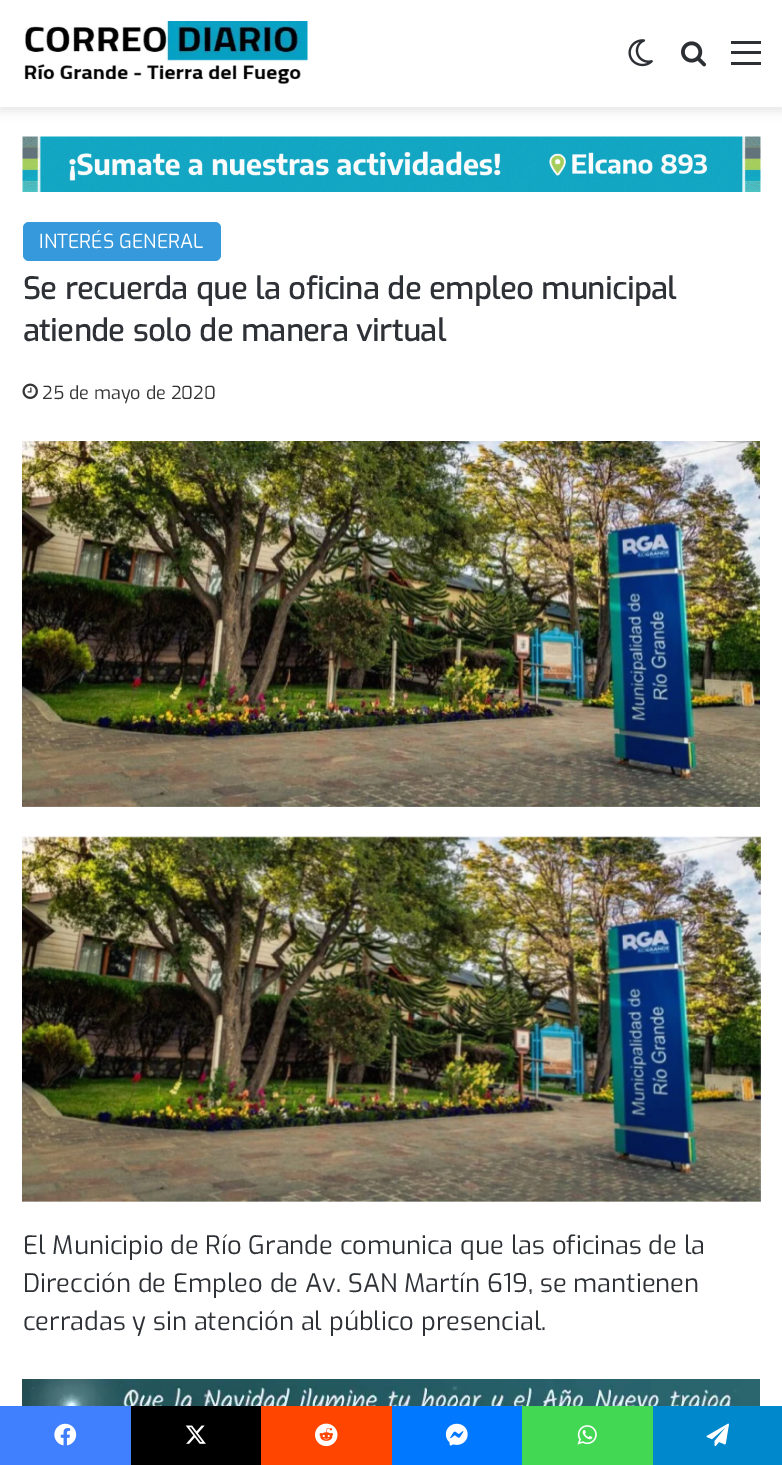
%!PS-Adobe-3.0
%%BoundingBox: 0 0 782 1465
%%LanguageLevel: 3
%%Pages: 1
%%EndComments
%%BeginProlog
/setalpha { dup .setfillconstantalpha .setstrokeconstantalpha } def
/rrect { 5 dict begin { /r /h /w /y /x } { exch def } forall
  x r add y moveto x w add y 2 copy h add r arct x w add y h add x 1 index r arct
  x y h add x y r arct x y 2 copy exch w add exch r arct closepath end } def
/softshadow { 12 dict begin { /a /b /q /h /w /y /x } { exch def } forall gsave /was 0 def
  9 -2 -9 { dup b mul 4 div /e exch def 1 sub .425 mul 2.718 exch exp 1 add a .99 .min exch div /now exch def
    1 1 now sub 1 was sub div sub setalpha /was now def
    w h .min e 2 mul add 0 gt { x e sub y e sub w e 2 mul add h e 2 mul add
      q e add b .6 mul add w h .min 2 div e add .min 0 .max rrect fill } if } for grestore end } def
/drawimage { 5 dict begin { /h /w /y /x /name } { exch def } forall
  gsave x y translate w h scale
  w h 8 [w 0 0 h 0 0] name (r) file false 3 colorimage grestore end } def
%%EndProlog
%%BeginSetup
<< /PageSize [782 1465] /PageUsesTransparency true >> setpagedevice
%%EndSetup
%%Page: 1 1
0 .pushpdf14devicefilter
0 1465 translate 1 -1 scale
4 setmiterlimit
1 setgray
0 0 782 1465 rectfill
0 setgray
0 5 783 106 0 5 0.1 softshadow
1 setgray
0 0 782 107 rectfill
(images/1.raw) 24 21 284 63 drawimage
(images/2.raw) 628 39 25 28 drawimage
(images/3.raw) 681 41 26 26 drawimage
0.173 0.184 0.204 setrgbcolor
731 51 30 3 rectfill
731 41 30 3 rectfill
731 62 30 3 rectfill
(images/4.raw) 22 136 739 56 drawimage
0.212 0.6 0.859 setrgbcolor
23 222 198 39 6 rrect fill
(images/5.raw) 22 383 16 16 drawimage
(images/6.raw) 22 441 738 366 drawimage
(images/7.raw) 22 836 739 366 drawimage
(images/8.raw) 22 1379 738 27 drawimage
0.251 0.502 1 setrgbcolor
0 1406 131 59 rectfill
(images/9.raw) 54 1423 23 23 drawimage
0 setgray
131 1406 130 59 rectfill
(images/10.raw) 185 1425 21 19 drawimage
1 0.271 0 setrgbcolor
261 1406 131 59 rectfill
(images/11.raw) 315 1423 23 24 drawimage
0 0.471 1 setrgbcolor
392 1406 130 59 rectfill
(images/12.raw) 445 1423 23 23 drawimage
0.263 0.847 0.329 setrgbcolor
522 1406 131 59 rectfill
(images/13.raw) 577 1425 20 20 drawimage
0 0.533 0.8 setrgbcolor
653 1406 129 59 rectfill
(images/14.raw) 706 1423 23 24 drawimage
/Exo-Regular [19.5 0 0 -19.5 0 0] selectfont
1 setgray
39 248 moveto (INTERÉS GENERAL) show
/Exo-Bold [30 0 0 -30 0 0] selectfont
0.18 0.192 0.212 setrgbcolor
23 299 moveto (Se recuerda que la oficina de empleo municipal) show
23 341 moveto (atiende solo de manera virtual) show
/Exo-Regular [18 0 0 -18 0 0] selectfont
0.208 setgray
42 399 moveto (25 de mayo de 2020) show
/Exo-Regular [25.5 0 0 -25.5 0 0] selectfont
0.18 0.192 0.212 setrgbcolor
23 1254 moveto (El Municipio de Río Grande comunica que las oficinas de la) show
23 1292 moveto (Dirección de Empleo de Av. SAN Martín 619, se mantienen) show
23 1330 moveto (cerradas y sin atención al público presencial.) show
.poppdf14devicefilter showpage
%%EOF
